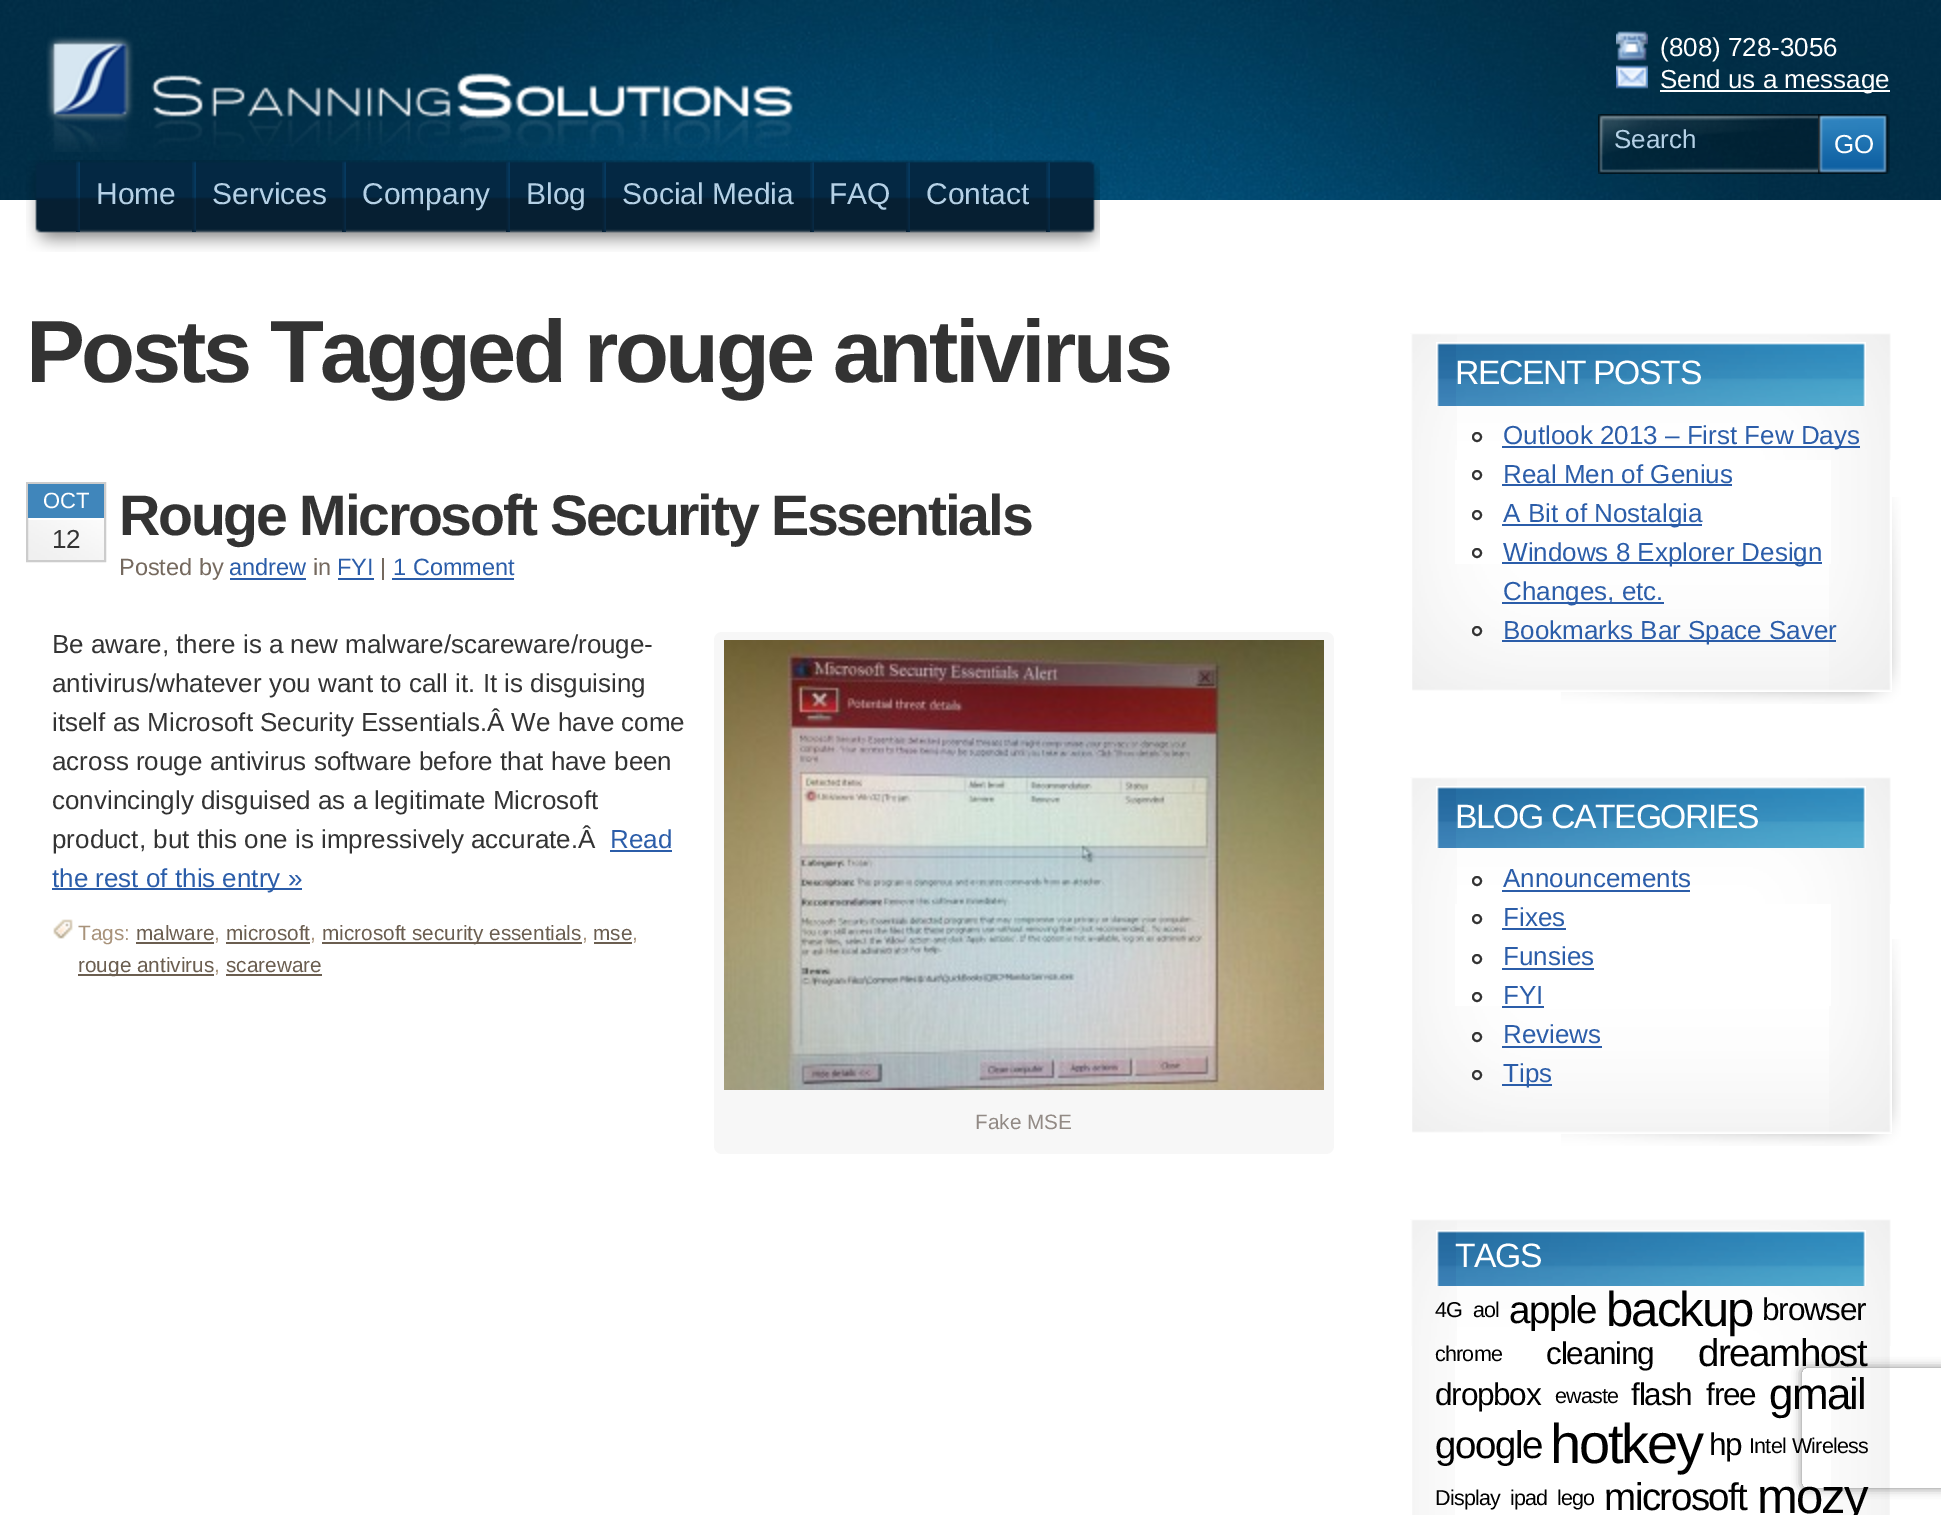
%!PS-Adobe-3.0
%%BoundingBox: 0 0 1941 1515
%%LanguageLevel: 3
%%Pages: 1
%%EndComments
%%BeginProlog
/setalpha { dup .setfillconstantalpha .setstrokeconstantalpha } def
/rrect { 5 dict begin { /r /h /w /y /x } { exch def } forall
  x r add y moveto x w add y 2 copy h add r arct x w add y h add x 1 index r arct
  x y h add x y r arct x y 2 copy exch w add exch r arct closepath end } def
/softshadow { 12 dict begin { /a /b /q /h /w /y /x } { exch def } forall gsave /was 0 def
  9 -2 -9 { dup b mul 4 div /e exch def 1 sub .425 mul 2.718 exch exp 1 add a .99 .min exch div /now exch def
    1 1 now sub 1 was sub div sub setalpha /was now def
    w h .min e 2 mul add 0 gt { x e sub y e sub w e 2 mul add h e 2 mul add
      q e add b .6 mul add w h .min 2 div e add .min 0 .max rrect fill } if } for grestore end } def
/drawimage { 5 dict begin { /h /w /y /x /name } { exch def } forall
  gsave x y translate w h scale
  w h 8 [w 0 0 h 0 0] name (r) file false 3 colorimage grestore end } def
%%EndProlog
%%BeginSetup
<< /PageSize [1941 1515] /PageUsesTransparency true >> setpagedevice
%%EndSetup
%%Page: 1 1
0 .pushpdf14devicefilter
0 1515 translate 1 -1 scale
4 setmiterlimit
1 setgray
0 0 1941 1515 rectfill
(images/1.raw) 0 0 1941 200 drawimage
(images/2.raw) 221 0 1537 200 drawimage
(images/3.raw) 1616 31 32 30 drawimage
(images/4.raw) 1616 65 32 24 drawimage
1660 90 230 2 rectfill
(images/5.raw) 46 36 747 116 drawimage
(images/6.raw) 1598 114 220 60 drawimage
(images/7.raw) 1818 114 72 60 drawimage
(images/8.raw) 26 160 50 92 drawimage
(images/9.raw) 76 160 1024 92 drawimage
(images/10.raw) 1046 162 4 70 drawimage
(images/11.raw) 76 161 4 71 drawimage
(images/12.raw) 192 161 4 71 drawimage
(images/13.raw) 342 161 4 71 drawimage
(images/14.raw) 506 161 4 71 drawimage
(images/15.raw) 602 162 4 70 drawimage
(images/16.raw) 810 162 4 70 drawimage
(images/16.raw) 906 162 4 70 drawimage
(images/17.raw) 28 520 76 40 drawimage
0.8 setgray
2 setlinewidth
27 483 78 78 rectstroke
0.251 0.525 0.733 setrgbcolor
28 484 76 34 rectfill
0.169 0.365 0.663 setrgbcolor
230 578 76 2 rectfill
338 578 36 2 rectfill
392 578 122 2 rectfill
610 850 62 2 rectfill
52 888 250 2 rectfill
(images/18.raw) 53 919 20 20 drawimage
0.42 0.369 0.314 setrgbcolor
136 942 78 2 rectfill
226 942 84 2 rectfill
322 942 260 2 rectfill
594 942 38 2 rectfill
78 974 136 2 rectfill
226 974 96 2 rectfill
0.969 setgray
714 632 620 522 8 rrect fill
(images/19.raw) 724 640 600 450 drawimage
(images/20.raw) 1561 497 340 207 drawimage
1 setgray
1561 497 331 195 rectfill
(images/21.raw) 1412 460 43 104 drawimage
(images/22.raw) 1831 460 59 104 drawimage
(images/23.raw) 1410 332 481 128 drawimage
(images/24.raw) 1412 564 480 128 drawimage
(images/25.raw) 1410 334 47 126 drawimage
(images/26.raw) 1829 564 63 126 drawimage
(images/27.raw) 1436 342 20 64 drawimage
(images/28.raw) 1456 342 410 64 drawimage
0.2 setgray
newpath 1477 437 4 0 360 arc closepath stroke
0.169 0.365 0.663 setrgbcolor
1502 446 358 2 rectfill
0.2 setgray
newpath 1477 475 4 0 360 arc closepath stroke
0.169 0.365 0.663 setrgbcolor
1502 484 230 2 rectfill
0.2 setgray
newpath 1477 515 4 0 360 arc closepath stroke
0.169 0.365 0.663 setrgbcolor
1502 524 200 2 rectfill
0.2 setgray
newpath 1477 553 4 0 360 arc closepath stroke
0.169 0.365 0.663 setrgbcolor
1502 562 320 2 rectfill
1502 602 162 2 rectfill
0.2 setgray
newpath 1477 631 4 0 360 arc closepath stroke
0.169 0.365 0.663 setrgbcolor
1502 640 334 2 rectfill
(images/20.raw) 1561 939 340 207 drawimage
1 setgray
1561 939 331 195 rectfill
(images/29.raw) 1412 904 43 102 drawimage
(images/30.raw) 1831 904 59 102 drawimage
(images/23.raw) 1410 776 481 128 drawimage
(images/24.raw) 1412 1006 480 128 drawimage
(images/25.raw) 1410 778 47 126 drawimage
(images/26.raw) 1829 1006 63 126 drawimage
(images/31.raw) 1436 786 20 62 drawimage
(images/32.raw) 1456 786 410 62 drawimage
0.2 setgray
newpath 1477 881 4 0 360 arc closepath stroke
0.169 0.365 0.663 setrgbcolor
1502 890 188 2 rectfill
0.2 setgray
newpath 1477 919 4 0 360 arc closepath stroke
0.169 0.365 0.663 setrgbcolor
1502 928 64 2 rectfill
0.2 setgray
newpath 1477 959 4 0 360 arc closepath stroke
0.169 0.365 0.663 setrgbcolor
1502 968 92 2 rectfill
0.2 setgray
newpath 1477 997 4 0 360 arc closepath stroke
0.169 0.365 0.663 setrgbcolor
1502 1006 42 2 rectfill
0.2 setgray
newpath 1477 1037 4 0 360 arc closepath stroke
0.169 0.365 0.663 setrgbcolor
1502 1046 100 2 rectfill
0.2 setgray
newpath 1477 1075 4 0 360 arc closepath stroke
0.169 0.365 0.663 setrgbcolor
1502 1084 50 2 rectfill
(images/33.raw) 1412 1346 43 169 drawimage
(images/34.raw) 1831 1346 59 169 drawimage
(images/23.raw) 1410 1218 481 128 drawimage
(images/25.raw) 1410 1220 47 126 drawimage
(images/35.raw) 1436 1230 20 56 drawimage
(images/36.raw) 1456 1230 410 56 drawimage
gsave
newpath 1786 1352 moveto 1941 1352 lineto 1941 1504 lineto 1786 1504 lineto closepath 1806 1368 moveto 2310 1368 lineto 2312 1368 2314 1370 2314 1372 curveto 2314 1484 lineto 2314 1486 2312 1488 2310 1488 curveto 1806 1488 lineto 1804 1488 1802 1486 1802 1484 curveto 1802 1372 lineto 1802 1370 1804 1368 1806 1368 curveto closepath eoclip newpath
0.502 setgray
1802 1368 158 120 4 5 1 softshadow
grestore
/LiberationSans-Regular [26 0 0 -26 0 0] selectfont
1 setgray
1660 56 moveto (\(808\) 728-3056) show
1660 88 moveto (Send us a message) show
0.71 0.82 0.902 setrgbcolor
1614 148 moveto (Search) show
1 setgray
1834 153 moveto (GO) show
/LiberationSans-Regular [30 0 0 -30 0 0] selectfont
0.71 0.82 0.902 setrgbcolor
96 204 moveto (Home) show
212 204 moveto (Services) show
362 204 moveto (Company) show
526 204 moveto (Blog) show
622 204 moveto (Social Media) show
829 204 moveto (FAQ) show
926 204 moveto (Contact) show
/LiberationSans-Bold [88.4 0 0 -88.4 0 0] selectfont
0.2 setgray
26 382 moveto -3.55 0 (Posts Tagged rouge antivirus) ashow
/LiberationSans-Regular [22 0 0 -22 0 0] selectfont
1 setgray
43 508 moveto (OCT) show
/LiberationSans-Regular [26 0 0 -26 0 0] selectfont
0.2 setgray
52 548 moveto (12) show
/LiberationSans-Bold [57.25 0 0 -57.25 0 0] selectfont
119 535 moveto -2.3 0 (Rouge Microsoft Security Essentials) ashow
/LiberationSans-Regular [23.5 0 0 -23.5 0 0] selectfont
0.459 0.412 0.369 setrgbcolor
119 575 moveto (Posted by) show
0.169 0.365 0.663 setrgbcolor
229 575 moveto (andrew) show
0.459 0.412 0.369 setrgbcolor
313 575 moveto (in) show
0.169 0.365 0.663 setrgbcolor
337 575 moveto (FYI) show
0.459 0.412 0.369 setrgbcolor
380 575 moveto (|) show
0.169 0.365 0.663 setrgbcolor
393 575 moveto (1 Comment) show
/LiberationSans-Regular [26 0 0 -26 0 0] selectfont
0.2 setgray
52 653 moveto (Be aware, there is a new malware/scareware/rouge-) show
52 692 moveto (antivirus/whatever you want to call it. It is disguising) show
52 731 moveto (itself as Microsoft Security Essentials.Â We have come) show
52 770 moveto (across rouge antivirus software before that have been) show
52 809 moveto (convincingly disguised as a legitimate Microsoft) show
52 848 moveto (product, but this one is impressively accurate.Â) show
0.169 0.365 0.663 setrgbcolor
610 848 moveto (Read) show
52 887 moveto (the rest of this entry ») show
/LiberationSans-Regular [20.75 0 0 -20.75 0 0] selectfont
0.659 0.576 0.482 setrgbcolor
78 940 moveto (Tags:) show
0.42 0.369 0.314 setrgbcolor
136 940 moveto (malware) show
0.659 0.576 0.482 setrgbcolor
214 940 moveto (,) show
0.42 0.369 0.314 setrgbcolor
226 940 moveto (microsoft) show
0.659 0.576 0.482 setrgbcolor
310 940 moveto (,) show
0.42 0.369 0.314 setrgbcolor
322 940 moveto (microsoft security essentials) show
0.659 0.576 0.482 setrgbcolor
582 940 moveto (,) show
0.42 0.369 0.314 setrgbcolor
593 940 moveto (mse) show
0.659 0.576 0.482 setrgbcolor
632 940 moveto (,) show
0.42 0.369 0.314 setrgbcolor
78 972 moveto (rouge antivirus) show
0.659 0.576 0.482 setrgbcolor
214 972 moveto (,) show
0.42 0.369 0.314 setrgbcolor
226 972 moveto (scareware) show
0.573 0.541 0.522 setrgbcolor
975 1129 moveto (Fake MSE) show
/LiberationSans-Regular [33.75 0 0 -33.75 0 0] selectfont
1 setgray
1455 384 moveto -1.4 0 (RECENT POSTS) ashow
/LiberationSans-Regular [26 0 0 -26 0 0] selectfont
0.169 0.365 0.663 setrgbcolor
1503 444 moveto (Outlook 2013 – First Few Days) show
1503 483 moveto (Real Men of Genius) show
1503 522 moveto (A Bit of Nostalgia) show
1503 561 moveto (Windows 8 Explorer Design) show
1503 600 moveto (Changes, etc.) show
1503 639 moveto (Bookmarks Bar Space Saver) show
/LiberationSans-Regular [33.75 0 0 -33.75 0 0] selectfont
1 setgray
1455 828 moveto -1.4 0 (BLOG CATEGORIES) ashow
/LiberationSans-Regular [26 0 0 -26 0 0] selectfont
0.169 0.365 0.663 setrgbcolor
1503 887 moveto (Announcements) show
1503 926 moveto (Fixes) show
1503 965 moveto (Funsies) show
1503 1004 moveto (FYI) show
1503 1043 moveto (Reviews) show
1503 1082 moveto (Tips) show
/LiberationSans-Regular [33.75 0 0 -33.75 0 0] selectfont
1 setgray
1455 1267 moveto -1.4 0 (TAGS) ashow
/LiberationSans-Regular [21.5 0 0 -21.5 0 0] selectfont
0 setgray
1435 1317 moveto -0.8 0 (4G) ashow
1473 1317 moveto -0.8 0 (aol) ashow
/LiberationSans-Regular [38.5 0 0 -38.5 0 0] selectfont
1509 1323 moveto -1.5 0 (apple) ashow
/LiberationSans-Regular [49 0 0 -49 0 0] selectfont
1606 1326 moveto -2 0 (backup) ashow
/LiberationSans-Regular [31.5 0 0 -31.5 0 0] selectfont
1762 1320 moveto -1.25 0 (browser) ashow
/LiberationSans-Regular [21.5 0 0 -21.5 0 0] selectfont
1435 1361 moveto -0.8 0 (chrome) ashow
/LiberationSans-Regular [31.5 0 0 -31.5 0 0] selectfont
1546 1364 moveto -1.25 0 (cleaning) ashow
/LiberationSans-Regular [38.5 0 0 -38.5 0 0] selectfont
1698 1366 moveto -1.5 0 (dreamhost) ashow
/LiberationSans-Regular [31.5 0 0 -31.5 0 0] selectfont
1435 1405 moveto -1.25 0 (dropbox) ashow
/LiberationSans-Regular [21.5 0 0 -21.5 0 0] selectfont
1555 1403 moveto -0.8 0 (ewaste) ashow
/LiberationSans-Regular [31.5 0 0 -31.5 0 0] selectfont
1631 1405 moveto -1.25 0 (flash) ashow
1706 1405 moveto -1.25 0 (free) ashow
/LiberationSans-Regular [44 0 0 -44 0 0] selectfont
1769 1409 moveto -1.75 0 (gmail) ashow
/LiberationSans-Regular [38.5 0 0 -38.5 0 0] selectfont
1435 1458 moveto -1.5 0 (google) ashow
/LiberationSans-Regular [56 0 0 -56 0 0] selectfont
1550 1463 moveto -2.25 0 (hotkey) ashow
/LiberationSans-Regular [31.5 0 0 -31.5 0 0] selectfont
1709 1455 moveto -1.25 0 (hp) ashow
/LiberationSans-Regular [21.5 0 0 -21.5 0 0] selectfont
1749 1453 moveto 1 0 32 -0.8 0 (Intel Wireless) awidthshow
1435 1505 moveto -0.8 0 (Display) ashow
1510 1505 moveto -0.8 0 (ipad) ashow
1557 1505 moveto -0.8 0 (lego) ashow
/LiberationSans-Regular [38.5 0 0 -38.5 0 0] selectfont
1604 1510 moveto -1.5 0 (microsoft) ashow
/LiberationSans-Regular [49 0 0 -49 0 0] selectfont
1757 1513 moveto -2 0 (mozy) ashow
.poppdf14devicefilter showpage
%%EOF
